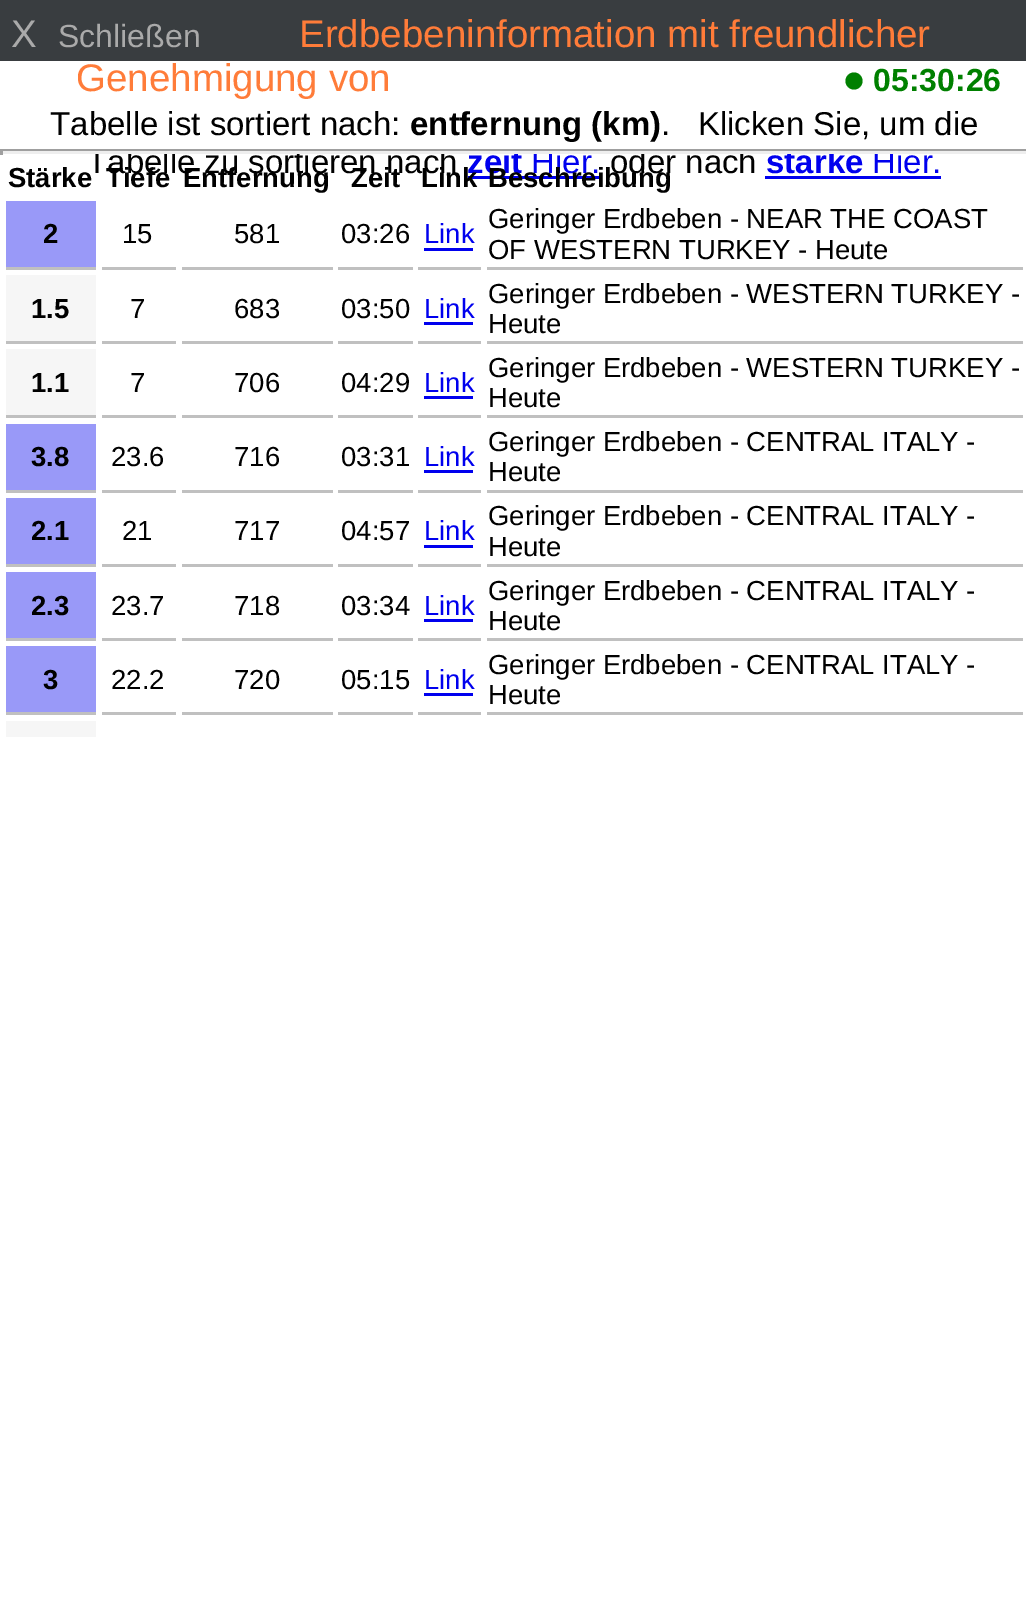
%!PS-Adobe-3.0
%%BoundingBox: 0 0 1026 1606
%%LanguageLevel: 3
%%Pages: 1
%%EndComments
%%BeginProlog
%%EndProlog
%%BeginSetup
<< /PageSize [1026 1606] >> setpagedevice
%%EndSetup
%%Page: 1 1
0 1606 translate 1 -1 scale
4 setmiterlimit
1 setgray
0 0 1026 1606 rectfill
0.224 0.239 0.251 setrgbcolor
0 0 1026 61 rectfill
0 0.502 0 setrgbcolor
newpath 854 81 8.5 0 360 arc closepath fill
0 0 0.933 setrgbcolor
468 176 132 3 rectfill
765 176 176 3 rectfill
0.6 0.6 0.973 setrgbcolor
6 201 90 66 rectfill
0.753 setgray
6 267 90 3 rectfill
102 267 74 3 rectfill
182 267 151 3 rectfill
338 267 75 3 rectfill
418 267 63 3 rectfill
0 0 0.933 setrgbcolor
424 248 49 3 rectfill
0.753 setgray
487 267 536 3 rectfill
0.965 setgray
6 275 90 66 rectfill
0.753 setgray
6 341 90 3 rectfill
102 341 74 3 rectfill
182 341 151 3 rectfill
338 341 75 3 rectfill
418 341 63 3 rectfill
0 0 0.933 setrgbcolor
424 322 49 3 rectfill
0.753 setgray
487 341 536 3 rectfill
0.965 setgray
6 349 90 66 rectfill
0.753 setgray
6 415 90 3 rectfill
102 415 74 3 rectfill
182 415 151 3 rectfill
338 415 75 3 rectfill
418 415 63 3 rectfill
0 0 0.933 setrgbcolor
424 396 49 3 rectfill
0.753 setgray
487 415 536 3 rectfill
0.6 0.6 0.973 setrgbcolor
6 424 90 66 rectfill
0.753 setgray
6 490 90 3 rectfill
102 490 74 3 rectfill
182 490 151 3 rectfill
338 490 75 3 rectfill
418 490 63 3 rectfill
0 0 0.933 setrgbcolor
424 470 49 3 rectfill
0.753 setgray
487 490 536 3 rectfill
0.6 0.6 0.973 setrgbcolor
6 498 90 66 rectfill
0.753 setgray
6 564 90 3 rectfill
102 564 74 3 rectfill
182 564 151 3 rectfill
338 564 75 3 rectfill
418 564 63 3 rectfill
0 0 0.933 setrgbcolor
424 545 49 3 rectfill
0.753 setgray
487 564 536 3 rectfill
0.6 0.6 0.973 setrgbcolor
6 572 90 66 rectfill
0.753 setgray
6 638 90 3 rectfill
102 638 74 3 rectfill
182 638 151 3 rectfill
338 638 75 3 rectfill
418 638 63 3 rectfill
0 0 0.933 setrgbcolor
424 619 49 3 rectfill
0.753 setgray
487 638 536 3 rectfill
0.6 0.6 0.973 setrgbcolor
6 646 90 66 rectfill
0.753 setgray
6 712 90 3 rectfill
102 712 74 3 rectfill
182 712 151 3 rectfill
338 712 75 3 rectfill
418 712 63 3 rectfill
0 0 0.933 setrgbcolor
424 693 49 3 rectfill
0.753 setgray
487 712 536 3 rectfill
0.965 setgray
6 721 90 16 rectfill
/LiberationSans-Regular [38.5 0 0 -38.5 0 0] selectfont
0.667 setgray
11 47 moveto (X) show
/LiberationSans-Regular [32 0 0 -32 0 0] selectfont
58 47 moveto (Schließen) show
/LiberationSans-Regular [38.5 0 0 -38.5 0 0] selectfont
1 0.486 0.224 setrgbcolor
299 47 moveto (Erdbebeninformation mit freundlicher) show
76 91 moveto (Genehmigung von) show
/LiberationSans-Bold [32 0 0 -32 0 0] selectfont
0 0.502 0 setrgbcolor
873 91 moveto (05:30:26) show
/LiberationSans-Regular [33 0 0 -33 0 0] selectfont
0 setgray
50 135 moveto (Tabelle ist sortiert nach:) show
/LiberationSans-Bold [33 0 0 -33 0 0] selectfont
410 135 moveto (entfernung \(km\)) show
/LiberationSans-Regular [33 0 0 -33 0 0] selectfont
661 135 moveto (.   Klicken Sie, um die) show
87 173 moveto (Tabelle zu sortieren nach) show
/LiberationSans-Bold [33 0 0 -33 0 0] selectfont
0 0 0.933 setrgbcolor
467 173 moveto (zeit) show
/LiberationSans-Regular [33 0 0 -33 0 0] selectfont
531 173 moveto (Hier.) show
0 setgray
610 173 moveto (oder nach) show
/LiberationSans-Bold [33 0 0 -33 0 0] selectfont
0 0 0.933 setrgbcolor
766 173 moveto (stärke) show
/LiberationSans-Regular [33 0 0 -33 0 0] selectfont
872 173 moveto (Hier.) show
0.624 setgray
0 149 1026 2 rectfill
0.933 setgray
0 151 1026 3 rectfill
0.624 setgray
0 149 3 6 rectfill
/LiberationSans-Bold [27.5 0 0 -27.5 0 0] selectfont
0 setgray
8 187 moveto (Stärke) show
106 187 moveto (Tiefe) show
183 187 moveto (Entfernung) show
351 187 moveto (Zeit) show
421 187 moveto (Link) show
488 187 moveto (Beschreibung) show
43 243 moveto (2) show
/LiberationSans-Regular [27.5 0 0 -27.5 0 0] selectfont
122 243 moveto (15) show
234 243 moveto (581) show
341 243 moveto (03:26) show
0 0 0.933 setrgbcolor
424 243 moveto (Link) show
0 setgray
488 228 moveto (Geringer Erdbeben - NEAR THE COAST) show
488 259 moveto (OF WESTERN TURKEY - Heute) show
/LiberationSans-Bold [27.5 0 0 -27.5 0 0] selectfont
31 318 moveto (1.5) show
/LiberationSans-Regular [27.5 0 0 -27.5 0 0] selectfont
130 318 moveto (7) show
234 318 moveto (683) show
341 318 moveto (03:50) show
0 0 0.933 setrgbcolor
424 318 moveto (Link) show
0 setgray
488 303 moveto (Geringer Erdbeben - WESTERN TURKEY -) show
488 333 moveto (Heute) show
/LiberationSans-Bold [27.5 0 0 -27.5 0 0] selectfont
31 392 moveto (1.1) show
/LiberationSans-Regular [27.5 0 0 -27.5 0 0] selectfont
130 392 moveto (7) show
234 392 moveto (706) show
341 392 moveto (04:29) show
0 0 0.933 setrgbcolor
424 392 moveto (Link) show
0 setgray
488 377 moveto (Geringer Erdbeben - WESTERN TURKEY -) show
488 407 moveto (Heute) show
/LiberationSans-Bold [27.5 0 0 -27.5 0 0] selectfont
31 466 moveto (3.8) show
/LiberationSans-Regular [27.5 0 0 -27.5 0 0] selectfont
111 466 moveto (23.6) show
234 466 moveto (716) show
341 466 moveto (03:31) show
0 0 0.933 setrgbcolor
424 466 moveto (Link) show
0 setgray
488 451 moveto (Geringer Erdbeben - CENTRAL ITALY -) show
488 481 moveto (Heute) show
/LiberationSans-Bold [27.5 0 0 -27.5 0 0] selectfont
31 540 moveto (2.1) show
/LiberationSans-Regular [27.5 0 0 -27.5 0 0] selectfont
122 540 moveto (21) show
234 540 moveto (717) show
341 540 moveto (04:57) show
0 0 0.933 setrgbcolor
424 540 moveto (Link) show
0 setgray
488 525 moveto (Geringer Erdbeben - CENTRAL ITALY -) show
488 556 moveto (Heute) show
/LiberationSans-Bold [27.5 0 0 -27.5 0 0] selectfont
31 615 moveto (2.3) show
/LiberationSans-Regular [27.5 0 0 -27.5 0 0] selectfont
111 615 moveto (23.7) show
234 615 moveto (718) show
341 615 moveto (03:34) show
0 0 0.933 setrgbcolor
424 615 moveto (Link) show
0 setgray
488 600 moveto (Geringer Erdbeben - CENTRAL ITALY -) show
488 630 moveto (Heute) show
/LiberationSans-Bold [27.5 0 0 -27.5 0 0] selectfont
43 689 moveto (3) show
/LiberationSans-Regular [27.5 0 0 -27.5 0 0] selectfont
111 689 moveto (22.2) show
234 689 moveto (720) show
341 689 moveto (05:15) show
0 0 0.933 setrgbcolor
424 689 moveto (Link) show
0 setgray
488 674 moveto (Geringer Erdbeben - CENTRAL ITALY -) show
488 704 moveto (Heute) show
showpage
%%EOF
